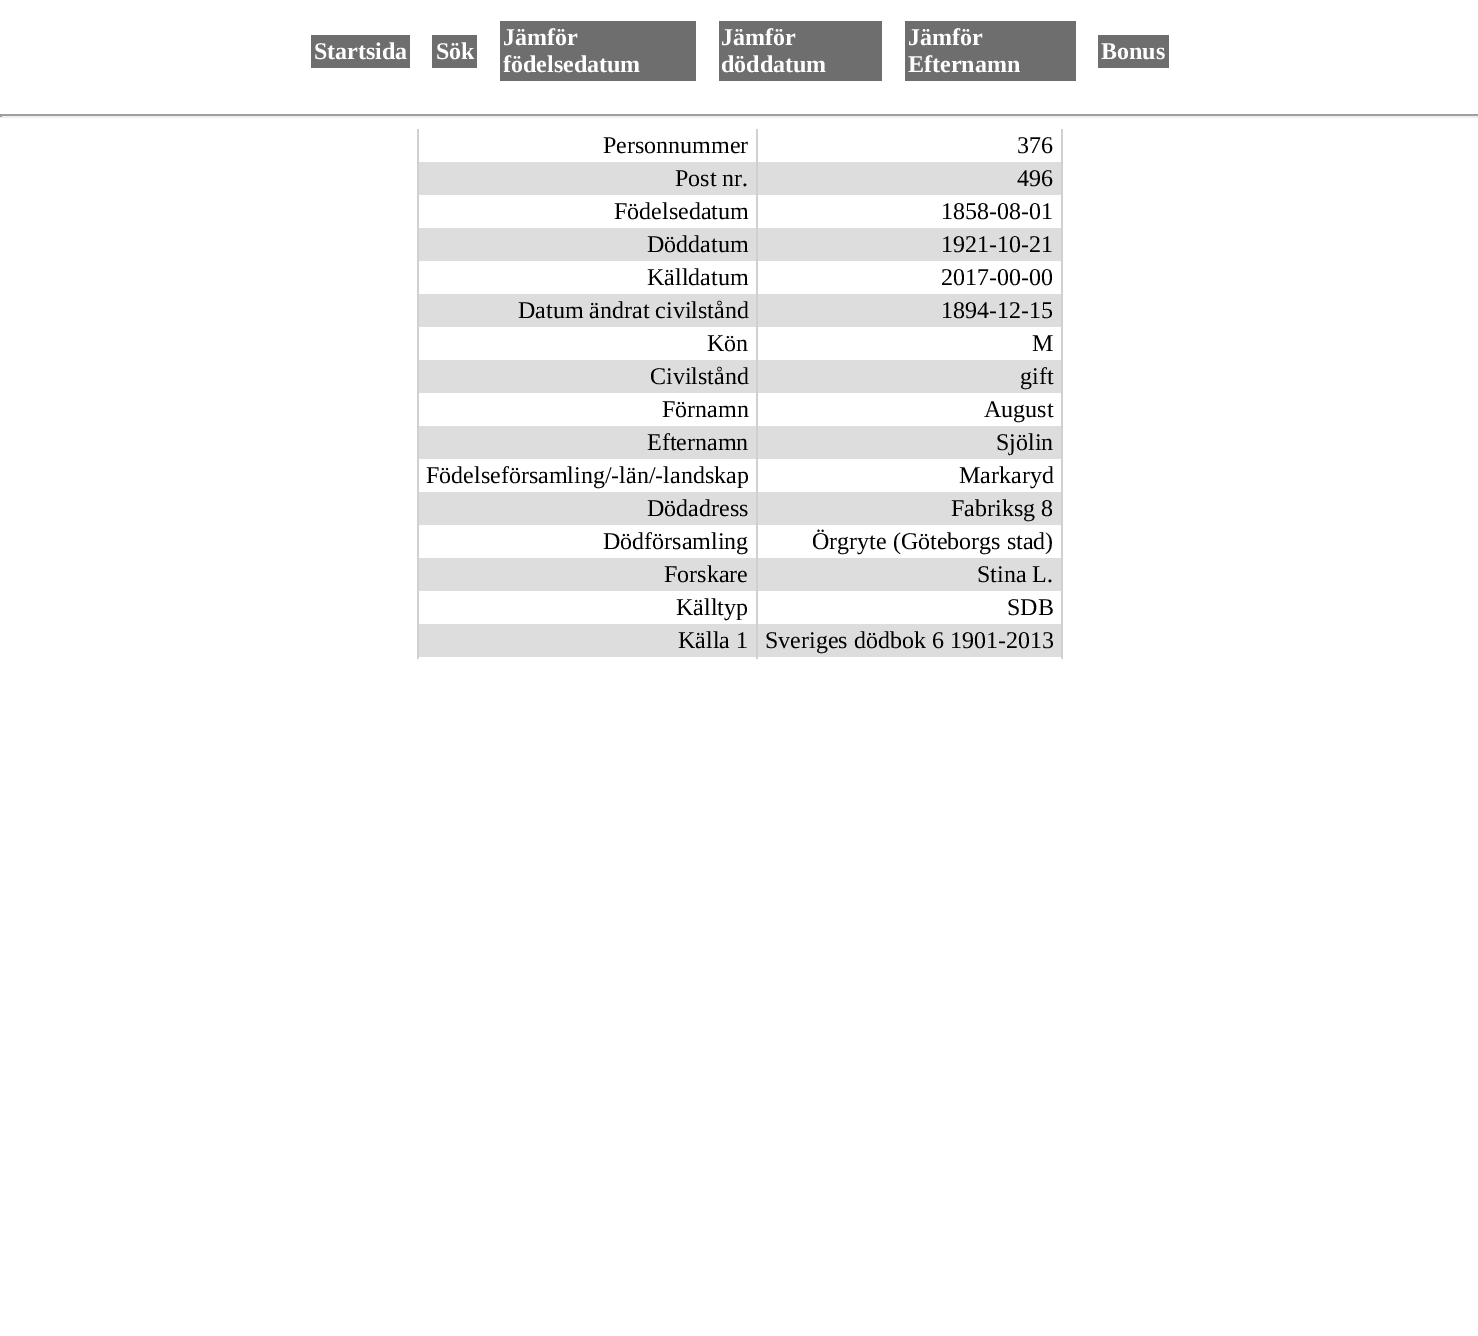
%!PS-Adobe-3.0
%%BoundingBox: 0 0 1478 1336
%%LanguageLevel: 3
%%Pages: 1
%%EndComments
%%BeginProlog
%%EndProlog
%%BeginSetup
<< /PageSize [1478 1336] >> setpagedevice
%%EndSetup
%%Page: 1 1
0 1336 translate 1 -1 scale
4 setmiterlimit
1 setgray
0 0 1478 1336 rectfill
0.431 setgray
311 35 99 33 rectfill
432 35 45 33 rectfill
500 21 196 60 rectfill
719 21 163 60 rectfill
905 21 171 60 rectfill
1098 35 71 33 rectfill
0.624 setgray
0 114 1478 2 rectfill
0.933 setgray
0 116 1478 2 rectfill
0.624 setgray
0 114 2 3 rectfill
0.867 setgray
419 162 642 33 rectfill
419 228 642 33 rectfill
419 294 642 33 rectfill
419 360 642 33 rectfill
419 426 642 33 rectfill
419 492 642 33 rectfill
419 558 642 33 rectfill
419 624 642 33 rectfill
0.816 setgray
417 129 2 530 rectfill
1061 129 2 530 rectfill
756 129 2 530 rectfill
/LiberationSerif-Bold [24 0 0 -24 0 0] selectfont
1 setgray
314 59 moveto (Startsida) show
436 59 moveto (Sök) show
503 45 moveto (Jämför) show
503 72 moveto (födelsedatum) show
721 45 moveto (Jämför) show
721 72 moveto (döddatum) show
908 45 moveto (Jämför) show
908 72 moveto (Efternamn) show
1101 59 moveto (Bonus) show
/LiberationSerif-Regular [24 0 0 -24 0 0] selectfont
0 setgray
603 153 moveto (Personnummer) show
1017 153 moveto (376) show
675 186 moveto (Post nr.) show
1017 186 moveto (496) show
614 219 moveto (Födelsedatum) show
941 219 moveto (1858-08-01) show
647 252 moveto (Döddatum) show
941 252 moveto (1921-10-21) show
647 285 moveto (Källdatum) show
941 285 moveto (2017-00-00) show
518 318 moveto (Datum ändrat civilstånd) show
941 318 moveto (1894-12-15) show
707 351 moveto (Kön) show
1032 351 moveto (M) show
650 384 moveto (Civilstånd) show
1020 384 moveto (gift) show
662 417 moveto (Förnamn) show
984 417 moveto (August) show
647 450 moveto (Efternamn) show
996 450 moveto (Sjölin) show
426 483 moveto (Födelseförsamling/-län/-landskap) show
959 483 moveto (Markaryd) show
647 516 moveto (Dödadress) show
951 516 moveto (Fabriksg 8) show
603 549 moveto (Dödförsamling) show
812 549 moveto (Örgryte \(Göteborgs stad\)) show
664 582 moveto (Forskare) show
977 582 moveto (Stina L.) show
676 615 moveto (Källtyp) show
1007 615 moveto (SDB) show
678 648 moveto (Källa 1) show
765 648 moveto (Sveriges dödbok 6 1901-2013) show
showpage
%%EOF
